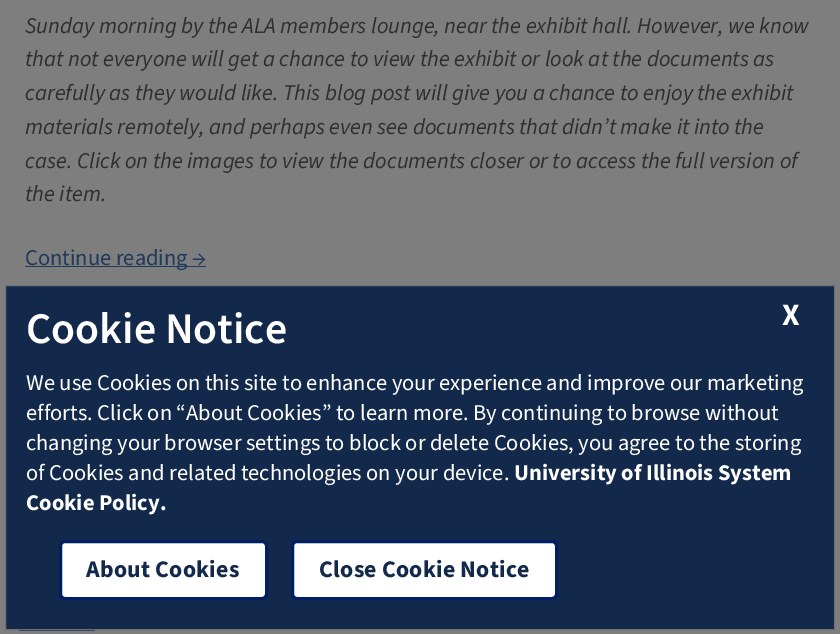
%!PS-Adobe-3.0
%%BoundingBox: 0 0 840 634
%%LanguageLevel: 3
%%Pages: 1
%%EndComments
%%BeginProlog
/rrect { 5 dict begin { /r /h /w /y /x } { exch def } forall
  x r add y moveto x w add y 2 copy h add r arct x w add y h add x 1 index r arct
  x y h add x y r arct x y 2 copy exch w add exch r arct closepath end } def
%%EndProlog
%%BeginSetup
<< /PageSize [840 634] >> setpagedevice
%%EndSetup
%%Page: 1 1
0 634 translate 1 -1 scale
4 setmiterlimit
0.494 setgray
0 0 840 634 rectfill
0.129 0.224 0.353 setrgbcolor
25 266 181 1 rectfill
19 630 76 1 rectfill
0.075 0.161 0.294 setrgbcolor
newpath 5.5 285.5 moveto 834.5 285.5 lineto 834.5 629.5 lineto 5.5 629.5 lineto closepath gsave fill grestore
0.439 setgray
stroke
1 setgray
60.5 541.5 206 57 4.5 rrect gsave fill grestore
0 0.118 0.384 setrgbcolor
3 setlinewidth
stroke
1 setgray
292.5 541.5 264 57 4.5 rrect gsave fill grestore
0 0.118 0.384 setrgbcolor
stroke
/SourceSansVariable-Italic [22.5 0 0 -22.5 0 0] selectfont
0.184 setgray
25 33 moveto (Sunday morning by the ALA members lounge, near the exhibit hall. However, we know) show
25 66 moveto (that not everyone will get a chance to view the exhibit or look at the documents as) show
25 100 moveto (carefully as they would like. This blog post will give you a chance to enjoy the exhibit) show
25 134 moveto (materials remotely, and perhaps even see documents that didn’t make it into the) show
25 168 moveto (case. Click on the images to view the documents closer or to access the full version of) show
25 201 moveto (the item.) show
/SourceSansVariable-Regular [22.5 0 0 -22.5 0 0] selectfont
0.129 0.224 0.353 setrgbcolor
25 265 moveto (Continue reading →) show
/SourceSansVariable-SemiBold [43.75 0 0 -43.75 0 0] selectfont
1 setgray
26 343 moveto (Cookie Notice) show
/SourceSansVariable-Bold [31 0 0 -31 0 0] selectfont
782 325 moveto (X) show
/SourceSansVariable-Regular [22.5 0 0 -22.5 0 0] selectfont
26 390 moveto (We use Cookies on this site to enhance your experience and improve our marketing) show
26 420 moveto (efforts. Click on “About Cookies” to learn more. By continuing to browse without) show
26 450 moveto (changing your browser settings to block or delete Cookies, you agree to the storing) show
26 480 moveto (of Cookies and related technologies on your device.) show
/SourceSansVariable-Bold [22.5 0 0 -22.5 0 0] selectfont
514 480 moveto (University of Illinois System) show
26 510 moveto (Cookie Policy.) show
/SourceSansVariable-Bold [23.75 0 0 -23.75 0 0] selectfont
0.075 0.161 0.294 setrgbcolor
86 577 moveto 0.25 0 (About Cookies) ashow
319 577 moveto 0.25 0 (Close Cookie Notice) ashow
showpage
%%EOF
